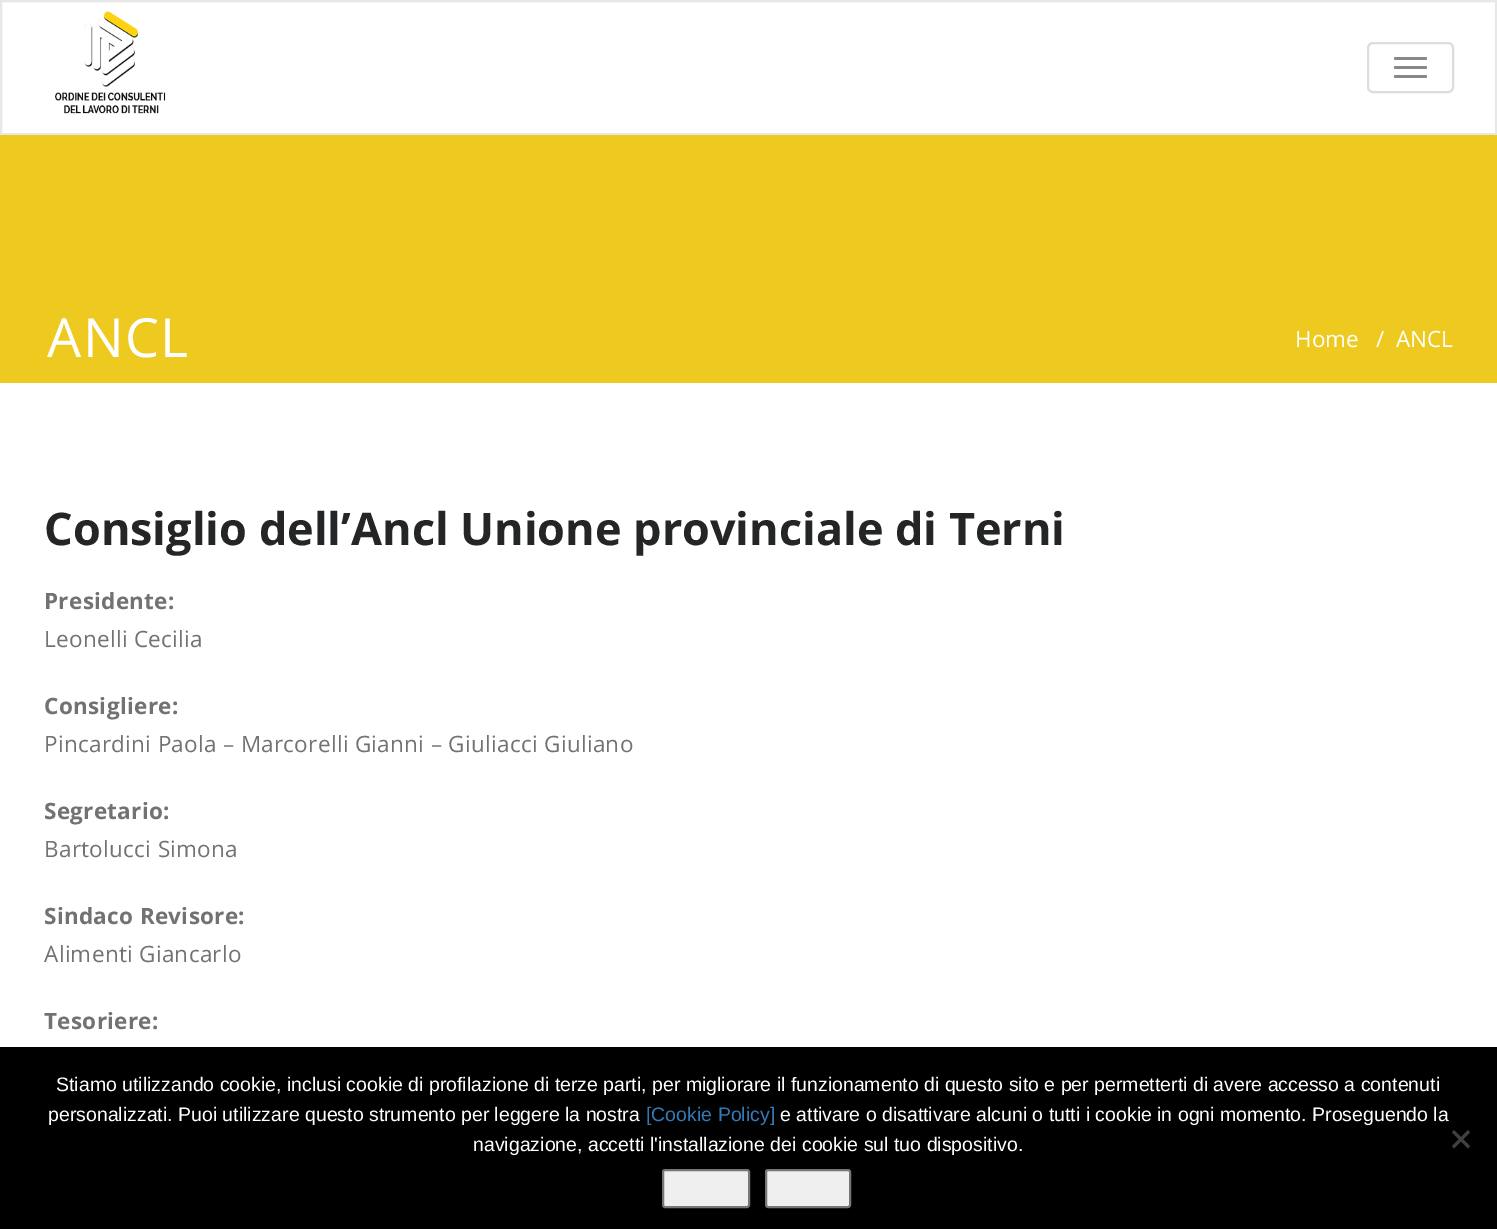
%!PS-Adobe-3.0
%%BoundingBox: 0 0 1497 1229
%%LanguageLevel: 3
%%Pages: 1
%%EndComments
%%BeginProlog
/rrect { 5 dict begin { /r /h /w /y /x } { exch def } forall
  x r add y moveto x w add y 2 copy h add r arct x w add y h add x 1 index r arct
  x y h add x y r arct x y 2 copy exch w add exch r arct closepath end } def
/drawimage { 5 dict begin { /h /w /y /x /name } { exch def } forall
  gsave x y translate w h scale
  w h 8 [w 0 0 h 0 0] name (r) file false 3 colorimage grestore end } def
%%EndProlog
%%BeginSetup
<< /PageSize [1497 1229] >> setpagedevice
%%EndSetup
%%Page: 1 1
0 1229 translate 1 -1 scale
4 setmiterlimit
1 setgray
0 0 1497 1229 rectfill
0.906 setgray
2 setlinewidth
1 1 1495 133 rectstroke
(images/1.raw) 55 11 111 103 drawimage
0.867 setgray
1368 43 85 49 5 rrect stroke
0.533 setgray
1394 57 33 3 1.5 rrect fill
1394 66 33 3 1.5 rrect fill
1394 75 33 3 1.5 rrect fill
0.933 0.788 0.122 setrgbcolor
0 135 1497 248 rectfill
0 setgray
0 1047 1497 182 rectfill
0.251 setgray
newpath 1468 1130 moveto 1470 1132.5 lineto 1454 1148.5 lineto 1452 1146 lineto closepath fill
newpath 1452 1132.5 moveto 1454 1130 lineto 1470 1146 lineto 1468 1148.5 lineto closepath fill
0.937 setgray
663 1170 86 37 2 rrect gsave fill grestore
0.463 setgray
stroke
0.937 setgray
766 1170 84 37 2 rrect gsave fill grestore
0.463 setgray
stroke
/OpenSans-Regular [54 0 0 -54 0 0] selectfont
1 setgray
47 357 moveto 1.5 0 (ANCL) ashow
/OpenSans-Regular [22.5 0 0 -22.5 0 0] selectfont
1295 347 moveto (Home) show
1376 347 moveto (/) show
1396 347 moveto (ANCL) show
/OpenSans-Bold [45 0 0 -45 0 0] selectfont
0.141 0.145 0.149 setrgbcolor
44 545 moveto (Consiglio dell’Ancl Unione provinciale di Terni) show
/OpenSans-Bold [22.5 0 0 -22.5 0 0] selectfont
0.447 setgray
44 609 moveto 0.3 0 (Presidente:) ashow
/OpenSans-Regular [22.5 0 0 -22.5 0 0] selectfont
44 647 moveto 0.3 0 (Leonelli Cecilia) ashow
/OpenSans-Bold [22.5 0 0 -22.5 0 0] selectfont
44 714 moveto 0.3 0 (Consigliere:) ashow
/OpenSans-Regular [22.5 0 0 -22.5 0 0] selectfont
44 752 moveto 0.3 0 (Pincardini Paola – Marcorelli Gianni – Giuliacci Giuliano) ashow
/OpenSans-Bold [22.5 0 0 -22.5 0 0] selectfont
44 819 moveto 0.3 0 (Segretario:) ashow
/OpenSans-Regular [22.5 0 0 -22.5 0 0] selectfont
44 857 moveto 0.3 0 (Bartolucci Simona) ashow
/OpenSans-Bold [22.5 0 0 -22.5 0 0] selectfont
44 924 moveto 0.3 0 (Sindaco Revisore:) ashow
/OpenSans-Regular [22.5 0 0 -22.5 0 0] selectfont
44 962 moveto 0.3 0 (Alimenti Giancarlo) ashow
/OpenSans-Bold [22.5 0 0 -22.5 0 0] selectfont
44 1029 moveto 0.3 0 (Tesoriere:) ashow
/LiberationSans-Regular [19.5 0 0 -19.5 0 0] selectfont
1 setgray
56 1091 moveto (Stiamo utilizzando cookie, inclusi cookie di profilazione di terze parti, per migliorare il funzionamento di questo sito e per permetterti di avere accesso a contenuti) show
48 1121 moveto (personalizzati. Puoi utilizzare questo strumento per leggere la nostra) show
0.2 0.478 0.718 setrgbcolor
646 1121 moveto ([Cookie Policy]) show
1 setgray
780 1121 moveto (e attivare o disattivare alcuni o tutti i cookie in ogni momento. Proseguendo la) show
473 1151 moveto (navigazione, accetti l'installazione dei cookie sul tuo dispositivo.) show
showpage
%%EOF
